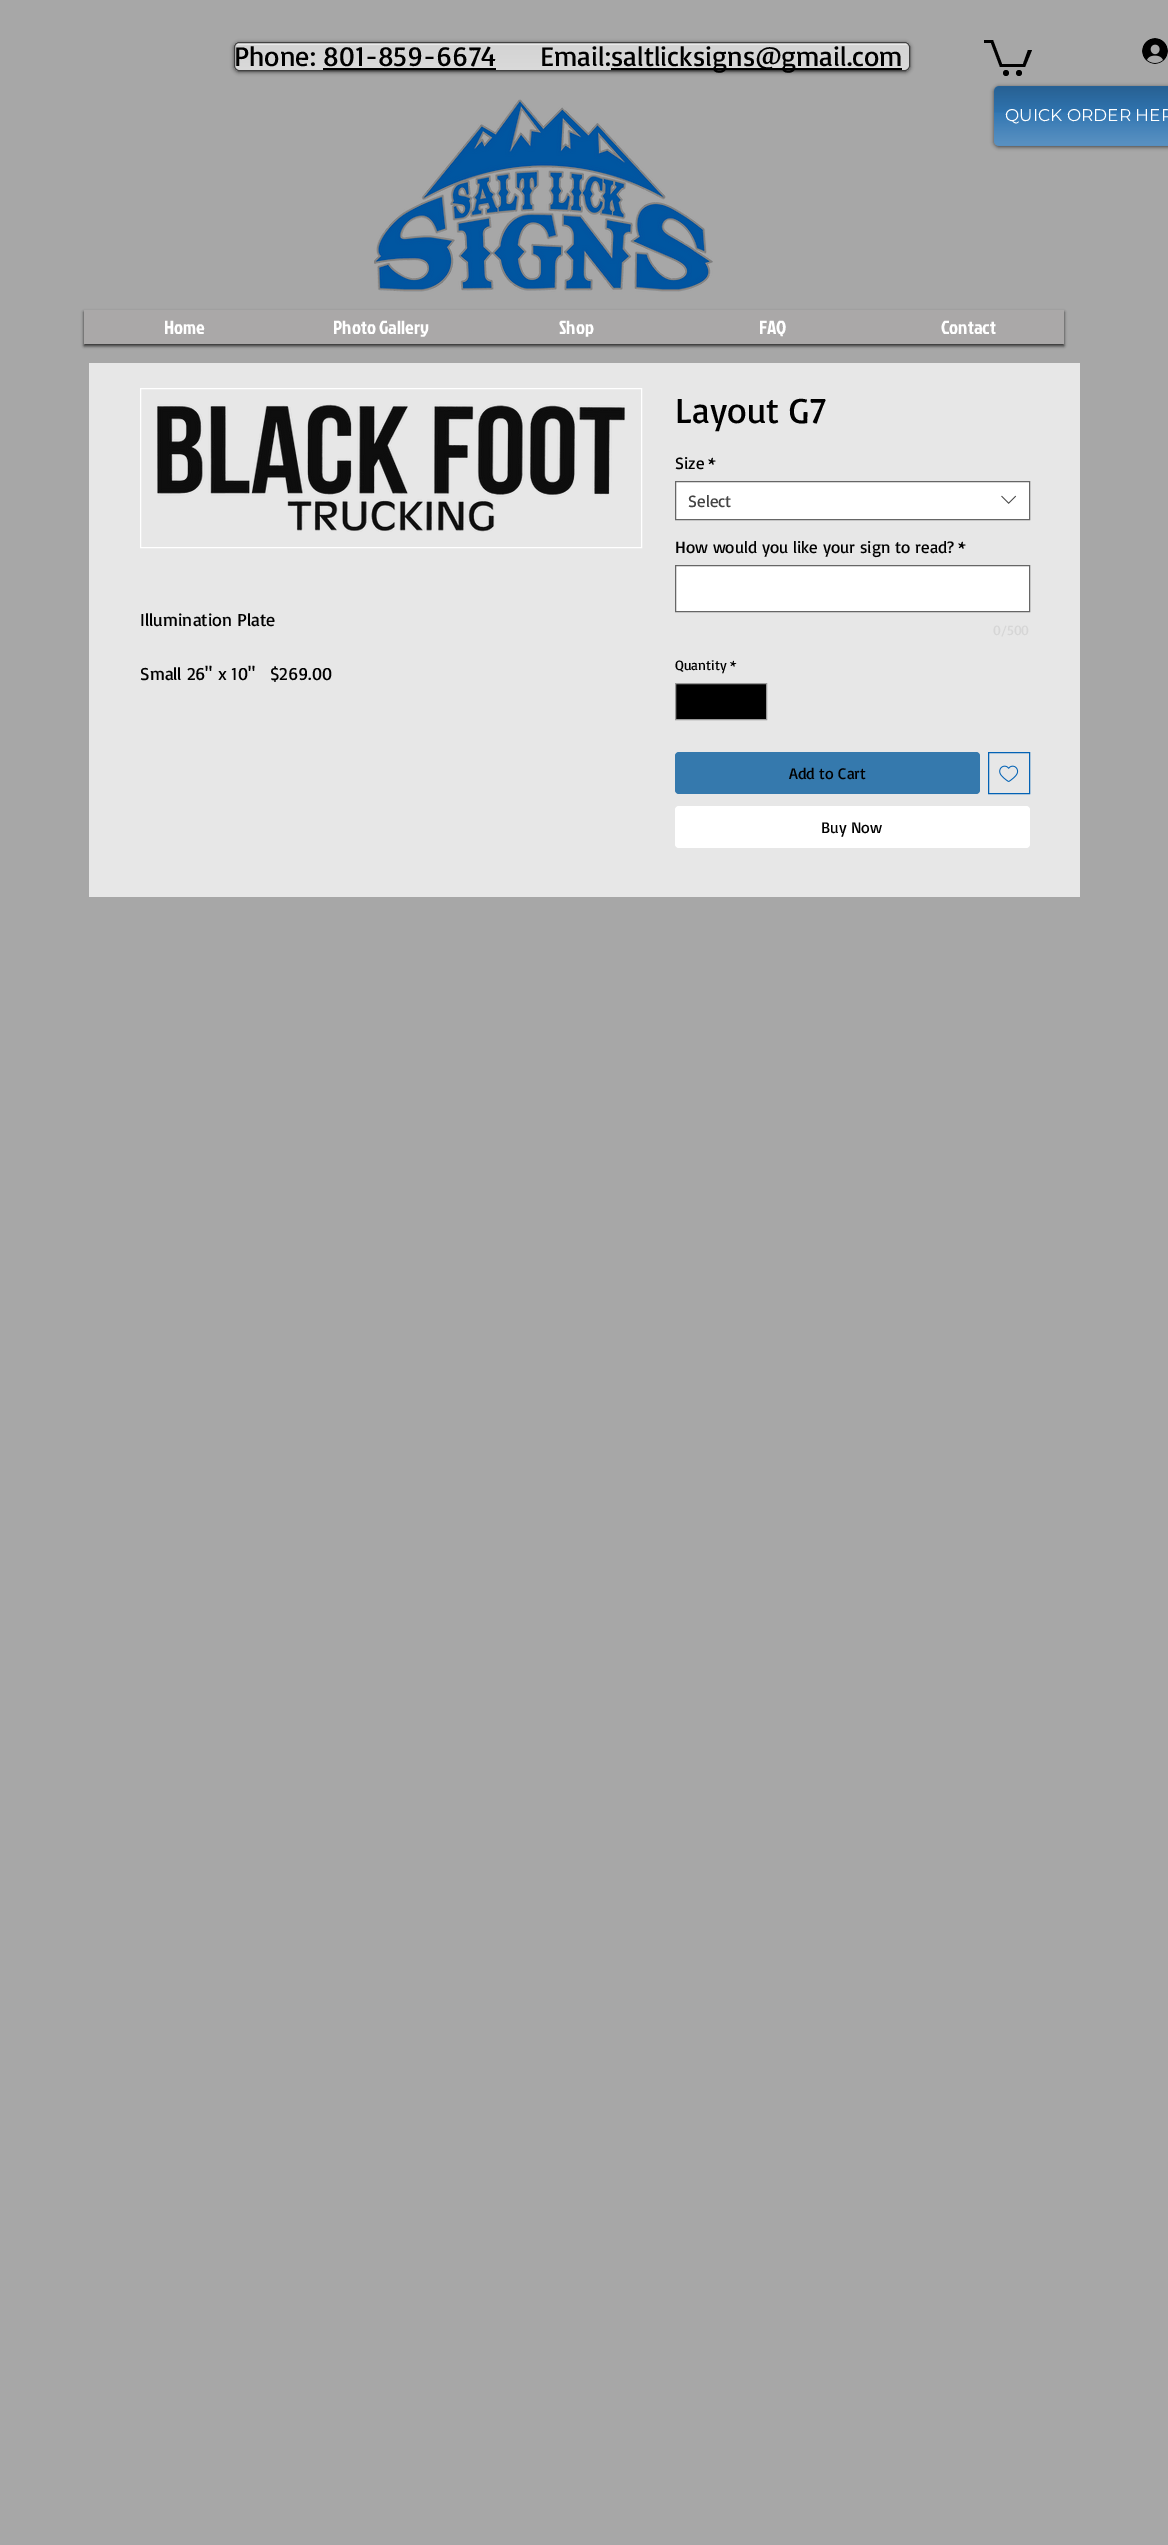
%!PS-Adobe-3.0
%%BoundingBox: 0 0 1168 2545
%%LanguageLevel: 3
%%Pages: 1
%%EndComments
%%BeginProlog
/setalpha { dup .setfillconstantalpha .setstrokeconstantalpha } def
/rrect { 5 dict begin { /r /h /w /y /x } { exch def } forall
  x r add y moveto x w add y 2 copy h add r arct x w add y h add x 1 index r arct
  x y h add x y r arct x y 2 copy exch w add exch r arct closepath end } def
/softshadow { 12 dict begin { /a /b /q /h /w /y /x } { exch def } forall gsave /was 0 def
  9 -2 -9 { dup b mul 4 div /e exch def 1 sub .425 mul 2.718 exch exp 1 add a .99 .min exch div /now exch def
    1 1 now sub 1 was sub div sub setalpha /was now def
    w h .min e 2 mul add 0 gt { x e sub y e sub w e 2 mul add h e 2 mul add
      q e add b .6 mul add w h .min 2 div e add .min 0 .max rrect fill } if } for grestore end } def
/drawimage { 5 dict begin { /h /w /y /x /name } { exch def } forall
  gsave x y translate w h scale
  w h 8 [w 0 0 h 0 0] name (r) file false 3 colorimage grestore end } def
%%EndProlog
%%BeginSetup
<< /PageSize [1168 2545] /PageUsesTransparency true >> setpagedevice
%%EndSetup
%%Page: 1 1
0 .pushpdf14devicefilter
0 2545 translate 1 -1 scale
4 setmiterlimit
0.655 setgray
0 0 1168 2545 rectfill
gsave
newpath 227 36 moveto 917 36 lineto 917 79 lineto 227 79 lineto closepath 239 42 moveto 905 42 lineto 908 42 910 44 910 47 curveto 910 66 lineto 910 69 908 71 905 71 curveto 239 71 lineto 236 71 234 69 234 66 curveto 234 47 lineto 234 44 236 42 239 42 curveto closepath eoclip newpath
0 setgray
234 43 676 29 5 2 0.6 softshadow
grestore
0.75 setalpha
1 setgray
234 42 676 29 5 rrect fill
1 setalpha
(images/1.raw) 234 45 676 26 drawimage
0.259 setgray
234.5 42.5 675 28 4.5 rrect stroke
0 setgray
newpath 1032 50 moveto 1025 67 lineto 1000 67 lineto 991 43 lineto 984 43 lineto 984 40 lineto 993 40 lineto 1002 64 lineto 1023 64 lineto 1028 50 lineto fill
newpath 1019 73 3 0 360 arc closepath fill
newpath 1006 73 3 0 360 arc closepath fill
(images/2.raw) 1142 38 26 26 drawimage
323 68 173 2 rectfill
611 68 291 2 rectfill
(images/3.raw) 374 99 339 193 drawimage
gsave
newpath 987 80 moveto 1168 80 lineto 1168 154 lineto 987 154 lineto closepath 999 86 moveto 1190 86 lineto 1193 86 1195 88 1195 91 curveto 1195 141 lineto 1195 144 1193 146 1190 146 curveto 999 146 lineto 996 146 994 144 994 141 curveto 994 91 lineto 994 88 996 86 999 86 curveto closepath eoclip newpath
994 87 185 60 5 2 0.6 softshadow
grestore
0.73 setalpha
0.012 0.384 0.71 setrgbcolor
994 86 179 60 5 rrect fill
1 setalpha
(images/4.raw) 994 86 174 26 drawimage
(images/5.raw) 994 113 174 33 drawimage
0 setgray
84 312 980 34 0 1.5 0.7 softshadow
0.667 0.659 0.659 setrgbcolor
84 310 980 34 rectfill
0.906 setgray
89 363 991 534 rectfill
1 setgray
140.5 388.5 501 159 rectstroke
(images/6.raw) 157 404 468 128 drawimage
newpath 675.5 481.5 moveto 1029.5 481.5 lineto 1029.5 519.5 lineto 675.5 519.5 lineto closepath gsave fill grestore
0.4 setgray
stroke
(images/7.raw) 1001 495 16 9 drawimage
1 setgray
newpath 675.5 565.5 moveto 1029.5 565.5 lineto 1029.5 611.5 lineto 675.5 611.5 lineto closepath gsave fill grestore
0.4 setgray
stroke
0 setgray
newpath 675.5 683.5 moveto 766.5 683.5 lineto 766.5 719.5 lineto 675.5 719.5 lineto closepath gsave fill grestore
0.6 setgray
stroke
0.208 0.475 0.678 setrgbcolor
675 752 305 42 4 rrect fill
0.012 0.384 0.71 setrgbcolor
988.5 752.5 41 41 rectstroke
(images/8.raw) 999 765 20 17 drawimage
1 setgray
675 806 355 42 4 rrect fill
/Basic-Regular [28 0 0 -28 0 0] selectfont
0 setgray
234 66 moveto (Phone: 801-859-6674) show
540 66 moveto (Email:) show
611 66 moveto (saltlicksigns@gmail.com) show
/Montserrat-Regular [17 0 0 -17 0 0] selectfont
1 setgray
1005 121 moveto (QUICK ORDER HER) show
/JockeyOne-Regular [19 0 0 -19 0 0] selectfont
164 334 moveto (Home) show
333 334 moveto (Photo Gallery) show
559 334 moveto (Shop) show
759 334 moveto (FAQ) show
941 334 moveto (Contact) show
/Basic-Regular [18 0 0 -18 0 0] selectfont
0 setgray
140 626 moveto (Illumination Plate) show
140 680 moveto (Small 26" x 10"   $269.00) show
/Basic-Regular [36 0 0 -36 0 0] selectfont
675 423 moveto (Layout G7) show
/Basic-Regular [17 0 0 -17 0 0] selectfont
675 469 moveto (Size) show
708 469 moveto (*) show
0.267 setgray
688 507 moveto (Select) show
0 setgray
675 553 moveto (How would you like your sign to read?) show
958 553 moveto (*) show
/Basic-Regular [14 0 0 -14 0 0] selectfont
0.839 setgray
993 635 moveto (0/500) show
0 setgray
675 670 moveto (Quantity *) show
/Basic-Regular [16 0 0 -16 0 0] selectfont
789 779 moveto (Add to Cart) show
821 833 moveto (Buy Now) show
.poppdf14devicefilter showpage
%%EOF
